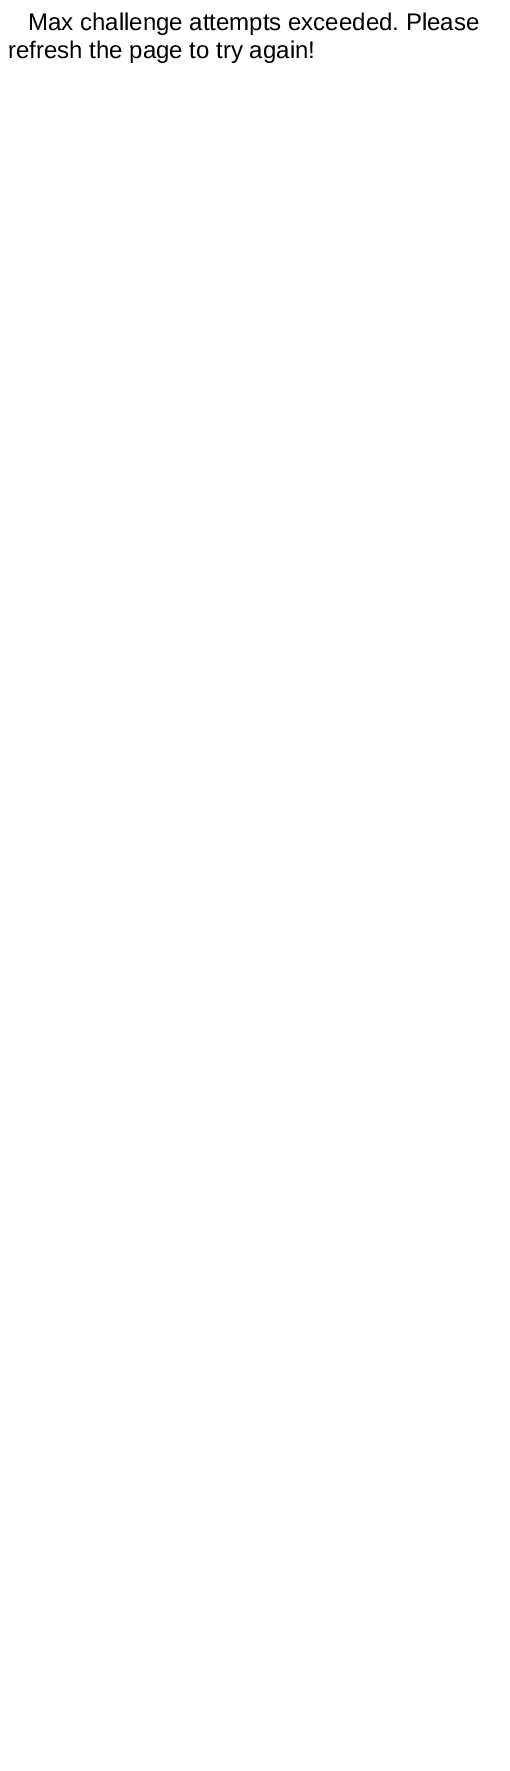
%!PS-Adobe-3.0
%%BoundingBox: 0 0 510 1771
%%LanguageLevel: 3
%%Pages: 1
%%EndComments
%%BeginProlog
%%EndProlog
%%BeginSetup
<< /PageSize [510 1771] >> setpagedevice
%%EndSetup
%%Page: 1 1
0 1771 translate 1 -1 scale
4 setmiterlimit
1 setgray
0 0 510 1771 rectfill
/LiberationSans-Regular [24 0 0 -24 0 0] selectfont
0 setgray
28 30 moveto (Max challenge attempts exceeded. Please) show
8 58 moveto (refresh the page to try again!) show
showpage
%%EOF
